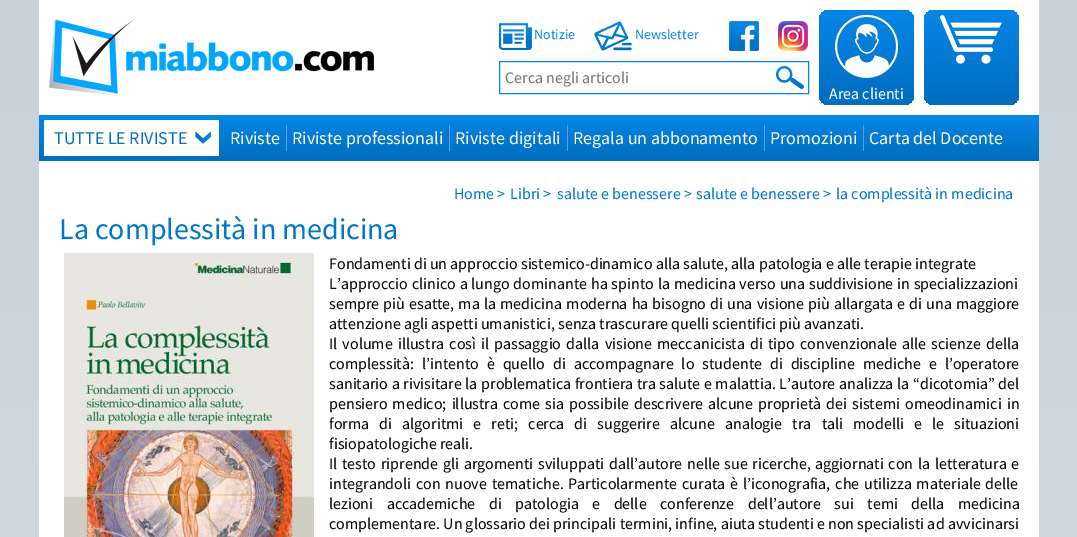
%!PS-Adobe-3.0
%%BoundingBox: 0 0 1077 537
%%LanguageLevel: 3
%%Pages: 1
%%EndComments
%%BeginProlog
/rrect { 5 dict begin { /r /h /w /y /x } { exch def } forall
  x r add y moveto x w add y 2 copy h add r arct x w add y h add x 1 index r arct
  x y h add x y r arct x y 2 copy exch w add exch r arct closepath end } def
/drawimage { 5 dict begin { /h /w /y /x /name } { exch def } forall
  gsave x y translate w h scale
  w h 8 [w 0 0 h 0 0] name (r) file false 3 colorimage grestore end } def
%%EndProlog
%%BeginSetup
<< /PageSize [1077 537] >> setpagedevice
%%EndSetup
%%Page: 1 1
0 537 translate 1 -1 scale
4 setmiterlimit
1 setgray
0 0 1077 537 rectfill
(images/1.raw) 0 0 1077 537 drawimage
39 0 1000 537 rectfill
(images/2.raw) 49 19 325 77 drawimage
(images/3.raw) 499 23 33 27 drawimage
(images/4.raw) 594 21 38 30 drawimage
(images/5.raw) 729 21 30 30 drawimage
(images/6.raw) 778 21 30 30 drawimage
0.02 0.522 0.902 setrgbcolor
499.5 61.5 309 32 rectstroke
(images/7.raw) 776 66 28 23 drawimage
gsave 924 10 95 95 10 rrect clip newpath
<< /ShadingType 2 /ColorSpace /DeviceRGB /Coords [972 10 972 105] /Extend [true true] /Function << /FunctionType 2 /Domain [0 1] /C0 [0.024 0.525 0.906] /C1 [0 0.427 0.749] /N 1 >> >> shfill grestore
(images/8.raw) 940 15 62 49 drawimage
gsave 819 10 95 95 10 rrect clip newpath
<< /ShadingType 2 /ColorSpace /DeviceRGB /Coords [867 10 867 105] /Extend [true true] /Function << /FunctionType 2 /Domain [0 1] /C0 [0.024 0.525 0.906] /C1 [0 0.427 0.749] /N 1 >> >> shfill grestore
(images/9.raw) 835 15 63 63 drawimage
gsave newpath 39 115 moveto 1039 115 lineto 1039 161 lineto 39 161 lineto closepath clip newpath
<< /ShadingType 2 /ColorSpace /DeviceRGB /Coords [539 115 539 161] /Extend [true true] /Function << /FunctionType 2 /Domain [0 1] /C0 [0.024 0.525 0.906] /C1 [0 0.427 0.749] /N 1 >> >> shfill grestore
1 setgray
44 120 175 36 rectfill
(images/10.raw) 195 131 16 13 drawimage
0.306 0.647 0.918 setrgbcolor
286 125 1 26 rectfill
0.02 0.459 0.788 setrgbcolor
285 125 1 26 rectfill
0.306 0.647 0.918 setrgbcolor
449 125 1 26 rectfill
0.02 0.459 0.788 setrgbcolor
448 125 1 26 rectfill
0.306 0.647 0.918 setrgbcolor
567 125 1 26 rectfill
0.02 0.459 0.788 setrgbcolor
566 125 1 26 rectfill
0.306 0.647 0.918 setrgbcolor
764 125 1 26 rectfill
0.02 0.459 0.788 setrgbcolor
763 125 1 26 rectfill
0.306 0.647 0.918 setrgbcolor
863 125 1 26 rectfill
0.02 0.459 0.788 setrgbcolor
862 125 1 26 rectfill
(images/11.raw) 64 253 250 284 drawimage
/SourceSansPro-Regular [14 0 0 -14 0 0] selectfont
0.02 0.522 0.902 setrgbcolor
534 39 moveto (Notizie) show
635 39 moveto (Newsletter) show
/SourceSansPro-Regular [16 0 0 -16 0 0] selectfont
0.459 setgray
505 83 moveto (Cerca negli articoli) show
1 setgray
829 99 moveto (Area clienti) show
/SourceSansPro-Regular [18 0 0 -18 0 0] selectfont
0.004 0.431 0.753 setrgbcolor
54 144 moveto (TUTTE LE RIVISTE) show
1 setgray
230 144 moveto (Riviste) show
292 144 moveto (Riviste professionali) show
455 144 moveto (Riviste digitali) show
573 144 moveto (Regala un abbonamento) show
770 144 moveto (Promozioni) show
869 144 moveto (Carta del Docente) show
/SourceSansPro-Regular [16 0 0 -16 0 0] selectfont
0 0.463 0.8 setrgbcolor
454 199 moveto (Home >) show
510 199 moveto (Libri >) show
557 199 moveto (salute e benessere >) show
696 199 moveto (salute e benessere >) show
836 199 moveto (la complessità in medicina) show
/SourceSansPro-Regular [30 0 0 -30 0 0] selectfont
59 239 moveto (La complessità in medicina) show
/SourceSansPro-Regular [16 0 0 -16 0 0] selectfont
0 setgray
329 269 moveto (Fondamenti di un approccio sistemico-dinamico alla salute, alla patologia e alle terapie integrate) show
329 289 moveto 0.6 0 32 (L’approccio clinico a lungo dominante ha spinto la medicina verso una suddivisione in specializzazioni) widthshow
329 309 moveto 0.9 0 32 (sempre più esatte, ma la medicina moderna ha bisogno di una visione più allargata e di una maggiore) widthshow
329 329 moveto (attenzione agli aspetti umanistici, senza trascurare quelli scientifici più avanzati.) show
329 349 moveto 1.9 0 32 (Il volume illustra così il passaggio dalla visione meccanicista di tipo convenzionale alle scienze della) widthshow
329 369 moveto 4.75 0 32 (complessità: l’intento è quello di accompagnare lo studente di discipline mediche e l’operatore) widthshow
329 389 moveto 0.4 0 32 (sanitario a rivisitare la problematica frontiera tra salute e malattia. L’autore analizza la “dicotomia” del) widthshow
329 409 moveto 1.9 0 32 (pensiero medico; illustra come sia possibile descrivere alcune proprietà dei sistemi omeodinamici in) widthshow
329 429 moveto 6.9 0 32 (forma di algoritmi e reti; cerca di suggerire alcune analogie tra tali modelli e le situazioni) widthshow
329 449 moveto (fisiopatologiche reali.) show
329 469 moveto 1.5 0 32 (Il testo riprende gli argomenti sviluppati dall’autore nelle sue ricerche, aggiornati con la letteratura e) widthshow
329 489 moveto 1.6 0 32 (integrandoli con nuove tematiche. Particolarmente curata è l’iconografia, che utilizza materiale delle) widthshow
329 509 moveto 10.25 0 32 (lezioni accademiche di patologia e delle conferenze dell’autore sui temi della medicina) widthshow
329 529 moveto (complementare. Un glossario dei principali termini, infine, aiuta studenti e non specialisti ad avvicinarsi) show
showpage
%%EOF
